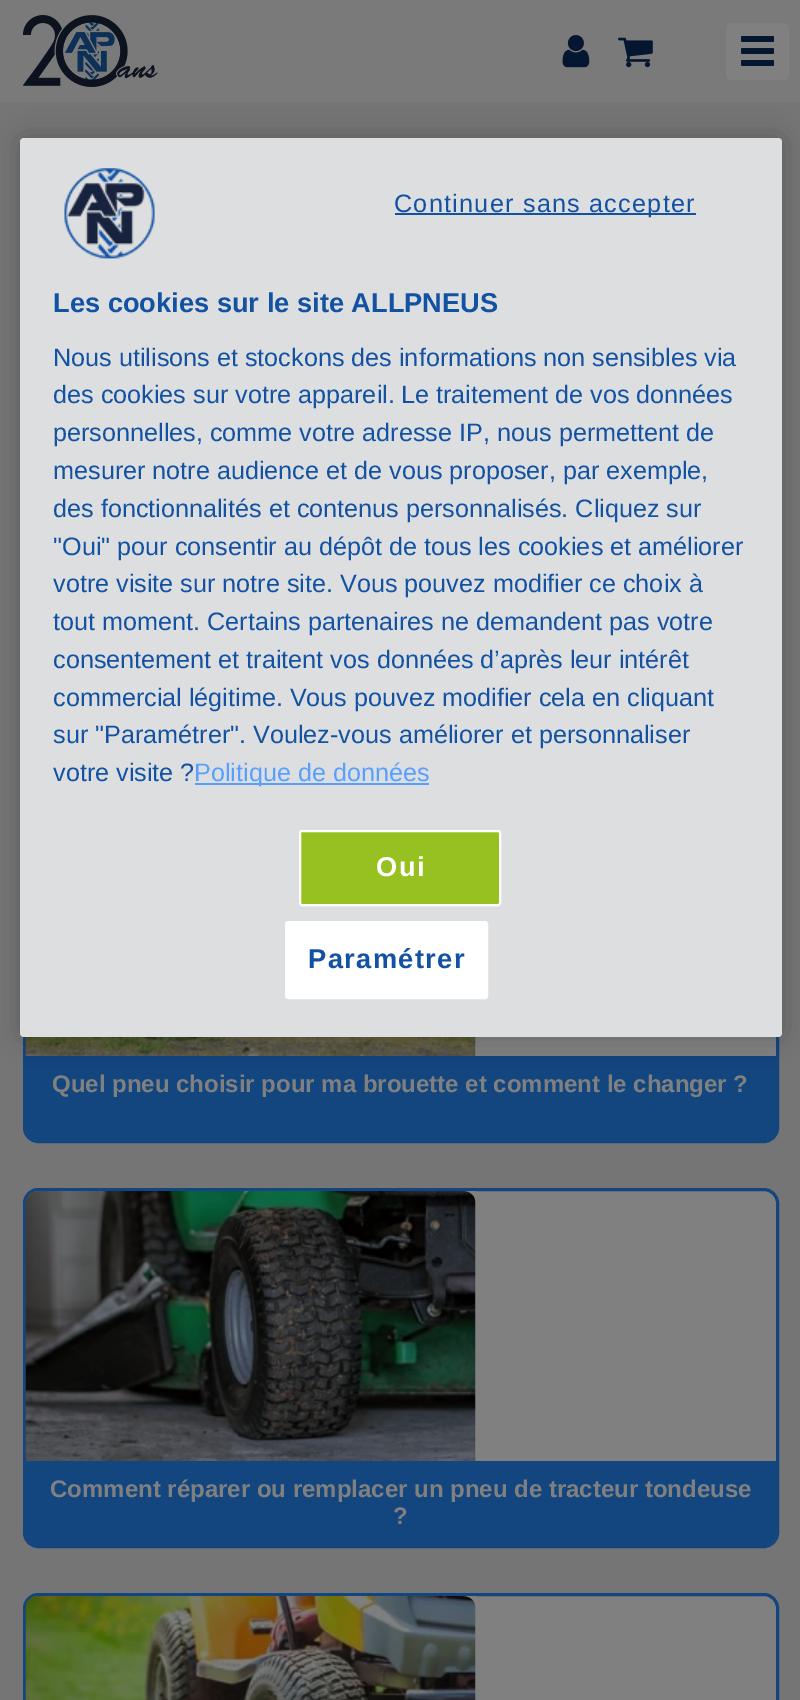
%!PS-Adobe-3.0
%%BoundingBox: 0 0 800 1700
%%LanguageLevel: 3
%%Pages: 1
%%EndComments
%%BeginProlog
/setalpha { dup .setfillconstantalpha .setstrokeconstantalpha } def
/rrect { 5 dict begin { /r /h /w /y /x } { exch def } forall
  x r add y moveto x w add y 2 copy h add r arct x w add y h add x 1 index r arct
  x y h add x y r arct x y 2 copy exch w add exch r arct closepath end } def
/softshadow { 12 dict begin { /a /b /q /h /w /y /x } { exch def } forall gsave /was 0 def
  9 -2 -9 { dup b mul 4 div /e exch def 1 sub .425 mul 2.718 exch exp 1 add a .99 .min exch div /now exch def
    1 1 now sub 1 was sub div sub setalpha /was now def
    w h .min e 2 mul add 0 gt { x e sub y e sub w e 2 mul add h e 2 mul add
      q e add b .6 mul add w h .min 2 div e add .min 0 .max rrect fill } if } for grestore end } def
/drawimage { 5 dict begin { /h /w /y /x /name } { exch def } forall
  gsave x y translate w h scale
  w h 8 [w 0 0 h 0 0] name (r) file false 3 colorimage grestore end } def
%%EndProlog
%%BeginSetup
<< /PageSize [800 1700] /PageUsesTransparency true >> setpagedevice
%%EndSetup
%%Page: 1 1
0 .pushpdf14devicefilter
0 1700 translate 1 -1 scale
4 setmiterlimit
0.463 0.459 0.459 setrgbcolor
0 0 800 1700 rectfill
0.478 setgray
0 0 800 102 rectfill
(images/1.raw) 23 15 135 72 drawimage
(images/2.raw) 562 35 28 33 drawimage
(images/3.raw) 618 37 35 31 drawimage
0.502 setgray
726 23 63 57 6 rrect fill
0.02 0.09 0.188 setrgbcolor
741 36 33 6 1.5 rrect fill
741 48 33 6 1.5 rrect fill
741 60 33 6 1.5 rrect fill
0.502 setgray
24.5 784.5 753 357 13.5 rrect gsave fill grestore
0.075 0.271 0.494 setrgbcolor
3 setlinewidth
stroke
(images/5.raw) 25 1037 451 19 drawimage
newpath 26 1056 moveto 776 1056 lineto 776 1128 lineto 776 1134.5 770.5 1140 764 1140 curveto 38 1140 lineto 31.5 1140 26 1134.5 26 1128 curveto closepath fill
0 setgray
20 138 762 899 4 13.5 0.2 softshadow
0.867 0.871 0.875 setrgbcolor
20 138 762 899 4 rrect fill
0.075 0.322 0.635 setrgbcolor
395 213 301 2 rectfill
0.588 0.757 0.125 setrgbcolor
300 831 200 74 2 rrect gsave fill grestore
1 setgray
2 setlinewidth
stroke
286 922 201 76 2 rrect gsave fill grestore
stroke
(images/4.raw) 64 168 91 91 drawimage
0.341 0.627 1 setrgbcolor
195 783 234 2 rectfill
0.502 setgray
24.5 1189.5 753 357 13.5 rrect gsave fill grestore
0.075 0.271 0.494 setrgbcolor
3 setlinewidth
stroke
(images/6.raw) 25 1191 451 270 drawimage
newpath 26 1461 moveto 776 1461 lineto 776 1533 lineto 776 1539.5 770.5 1545 764 1545 curveto 38 1545 lineto 31.5 1545 26 1539.5 26 1533 curveto closepath fill
0.502 setgray
24.5 1594.5 753 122 13.5 rrect gsave fill grestore
0.075 0.271 0.494 setrgbcolor
stroke
(images/7.raw) 25 1596 451 104 drawimage
/LiberationSans-Regular [25.2 0 0 -25.2 0 0] selectfont
0.075 0.322 0.635 setrgbcolor
394 212 moveto 1.25 0 (Continuer sans accepter) ashow
/LiberationSans-Bold [27.25 0 0 -27.25 0 0] selectfont
1 setgray
376 876 moveto 1.4 0 (Oui) ashow
0.075 0.322 0.635 setrgbcolor
308 968 moveto 1.4 0 (Paramétrer) ashow
53 312 moveto (Les cookies sur le site ALLPNEUS) show
/LiberationSans-Regular [25.2 0 0 -25.2 0 0] selectfont
53 366 moveto (Nous utilisons et stockons des informations non sensibles via) show
53 403 moveto (des cookies sur votre appareil.) show
401 403 moveto (Le traitement de vos données) show
53 441 moveto (personnelles, comme votre adresse IP, nous permettent de) show
53 479 moveto (mesurer notre audience et de vous proposer, par exemple,) show
53 517 moveto (des fonctionnalités et contenus personnalisés. Cliquez sur) show
53 555 moveto ("Oui" pour consentir au dépôt de tous les cookies et améliorer) show
53 592 moveto (votre visite sur notre site.) show
340 592 moveto (Vous pouvez modifier ce choix à) show
53 630 moveto (tout moment. Certains partenaires ne demandent pas votre) show
53 668 moveto (consentement et traitent vos données d’après leur intérêt) show
53 706 moveto (commercial légitime. Vous pouvez modifier cela en cliquant) show
53 743 moveto (sur "Paramétrer".) show
253 743 moveto (Voulez-vous améliorer et personnaliser) show
53 781 moveto (votre visite ?) show
0.341 0.627 1 setrgbcolor
194 781 moveto (Politique de données) show
/LiberationSans-Bold [24 0 0 -24 0 0] selectfont
0.502 setgray
52 1092 moveto (Quel pneu choisir pour ma brouette et comment le changer ?) show
50 1497 moveto (Comment réparer ou remplacer un pneu de tracteur tondeuse) show
393 1524 moveto (?) show
.poppdf14devicefilter showpage
%%EOF
